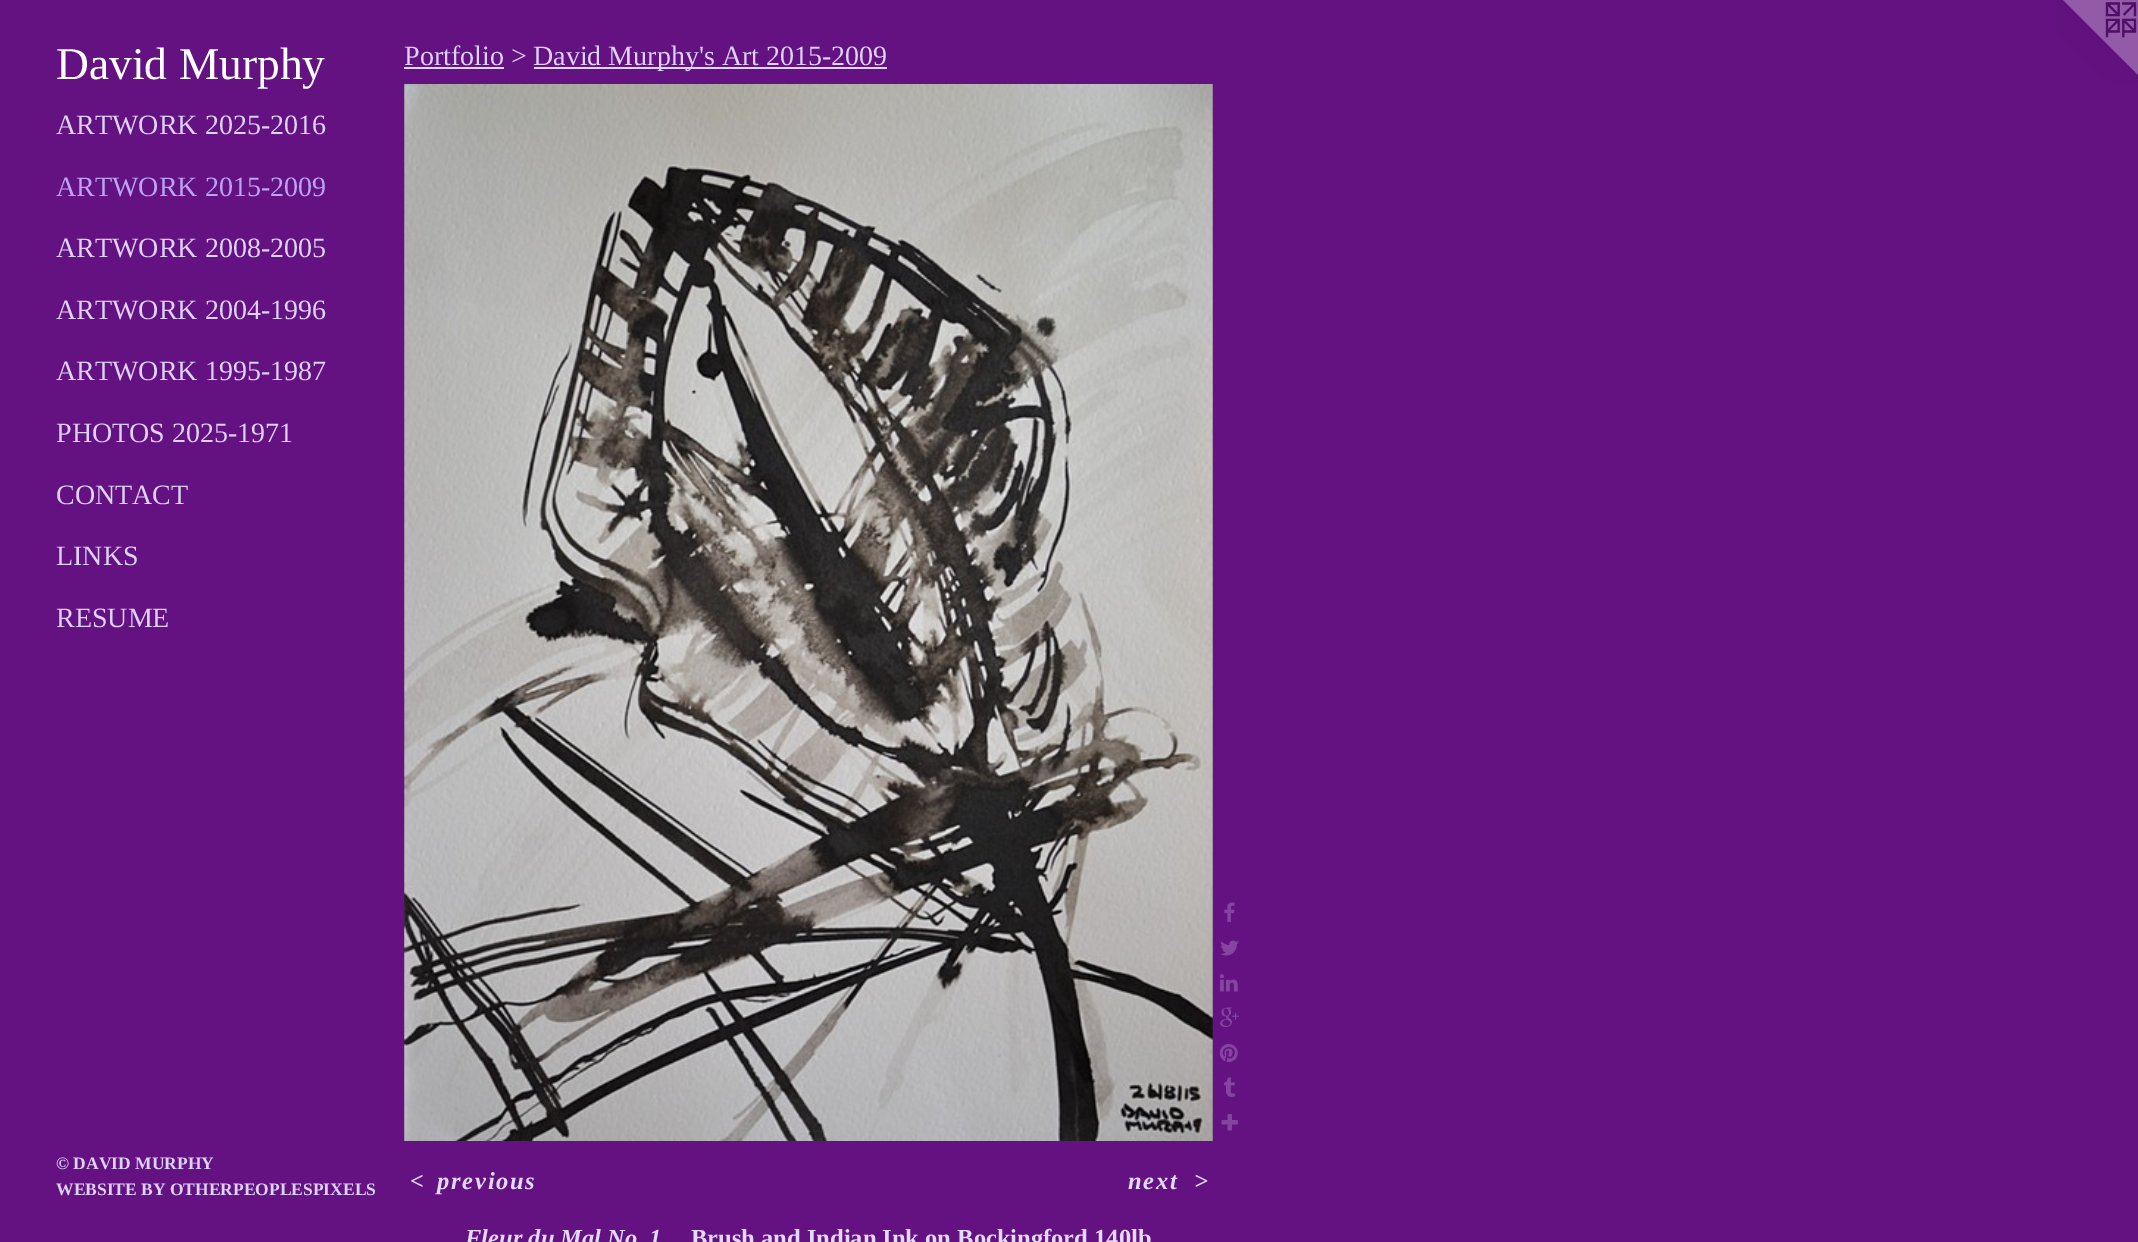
%!PS-Adobe-3.0
%%BoundingBox: 0 0 2138 1242
%%LanguageLevel: 3
%%Pages: 1
%%EndComments
%%BeginProlog
/drawimage { 5 dict begin { /h /w /y /x /name } { exch def } forall
  gsave x y translate w h scale
  w h 8 [w 0 0 h 0 0] name (r) file false 3 colorimage grestore end } def
%%EndProlog
%%BeginSetup
<< /PageSize [2138 1242] >> setpagedevice
%%EndSetup
%%Page: 1 1
0 1242 translate 1 -1 scale
4 setmiterlimit
0.392 0.071 0.51 setrgbcolor
0 0 2138 1242 rectfill
0.867 0.843 0.976 setrgbcolor
404 67 100 2 rectfill
534 67 353 2 rectfill
(images/1.raw) 404 84 809 1057 drawimage
(images/2.raw) 1224 902 11 20 drawimage
(images/3.raw) 1220 940 19 16 drawimage
(images/4.raw) 1219 974 19 18 drawimage
(images/5.raw) 1220 1007 19 20 drawimage
(images/6.raw) 1219 1044 19 18 drawimage
(images/7.raw) 1224 1077 12 20 drawimage
(images/8.raw) 1221 1114 17 17 drawimage
(images/9.raw) 2056 0 82 82 drawimage
/LiberationSerif-Regular [45.5 0 0 -45.5 0 0] selectfont
1 setgray
56 79 moveto (David Murphy) show
/LiberationSerif-Regular [28 0 0 -28 0 0] selectfont
0.867 0.824 0.976 setrgbcolor
56 134 moveto (ARTWORK 2025-2016) show
0.733 0.639 0.961 setrgbcolor
56 196 moveto (ARTWORK 2015-2009) show
0.867 0.824 0.976 setrgbcolor
56 257 moveto (ARTWORK 2008-2005) show
56 319 moveto (ARTWORK 2004-1996) show
56 380 moveto (ARTWORK 1995-1987) show
56 442 moveto (PHOTOS 2025-1971) show
56 504 moveto (CONTACT) show
56 565 moveto (LINKS) show
56 627 moveto (RESUME) show
/LiberationSerif-Bold [17.5 0 0 -17.5 0 0] selectfont
56 1169 moveto (© DAVID MURPHY) show
56 1195 moveto (WEBSITE BY OTHERPEOPLESPIXELS) show
/LiberationSerif-Regular [28 0 0 -28 0 0] selectfont
404 65 moveto (Portfolio >) show
533 65 moveto (David Murphy's Art 2015-2009) show
/LiberationSerif-BoldItalic [24.5 0 0 -24.5 0 0] selectfont
0.886 0.855 0.984 setrgbcolor
410 1189 moveto 1.75 0 (<) ashow
437 1189 moveto 1.75 0 (previous) ashow
1128 1189 moveto 1.75 0 (next) ashow
1194 1189 moveto 1.75 0 (>) ashow
465 1246 moveto (Fleur du Mal No. 1) show
/LiberationSerif-Bold [24.5 0 0 -24.5 0 0] selectfont
691 1246 moveto (Brush and Indian Ink on Bockingford 140lb) show
showpage
%%EOF
